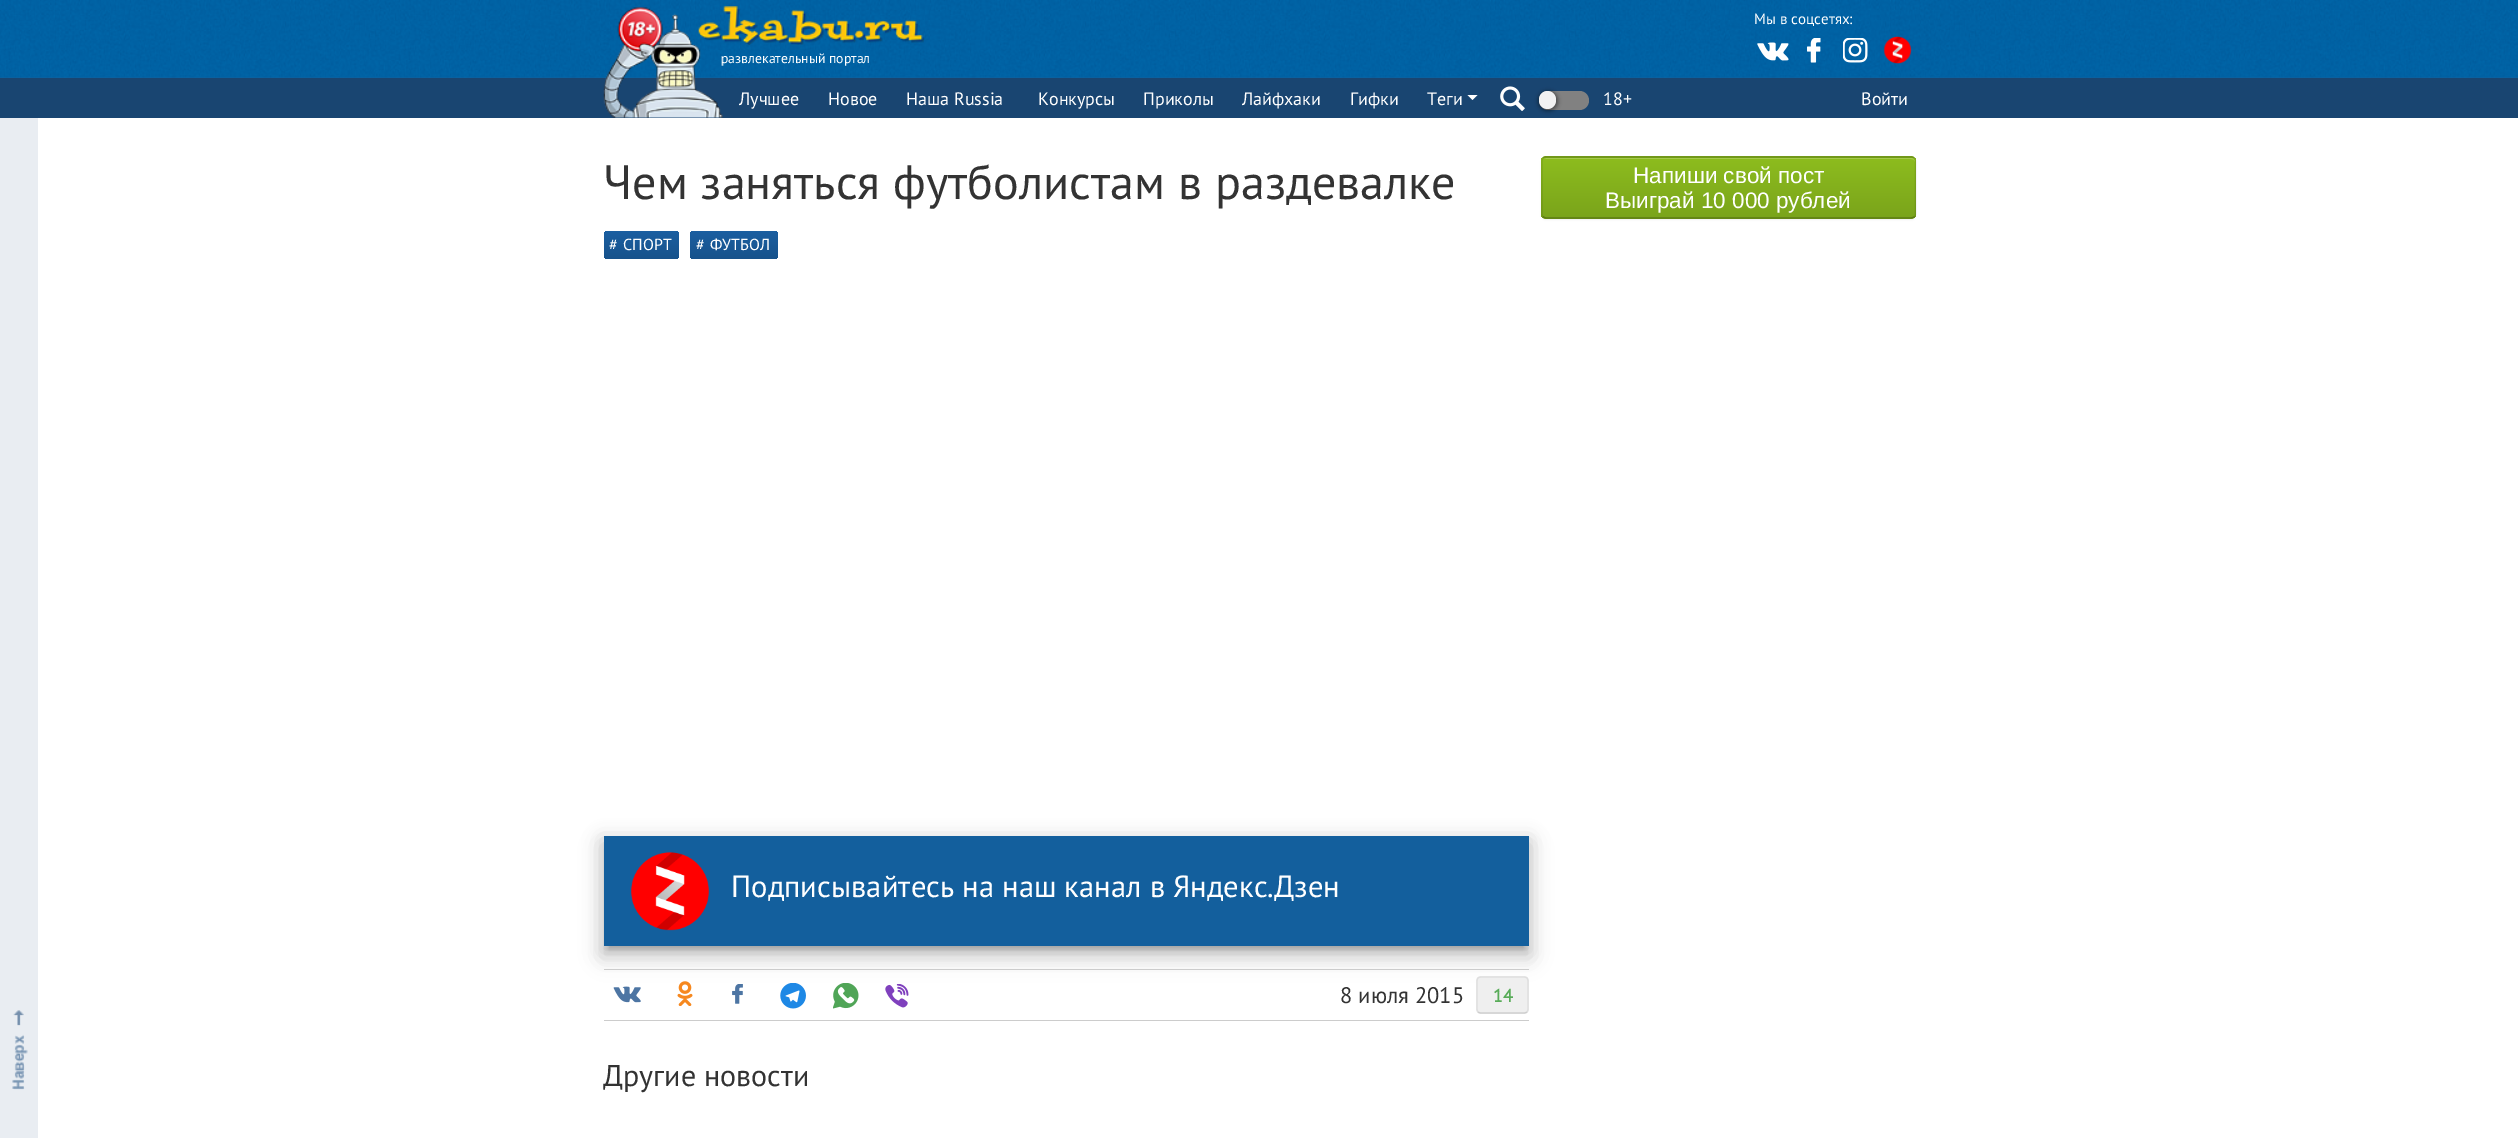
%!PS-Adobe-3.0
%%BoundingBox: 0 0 2518 1138
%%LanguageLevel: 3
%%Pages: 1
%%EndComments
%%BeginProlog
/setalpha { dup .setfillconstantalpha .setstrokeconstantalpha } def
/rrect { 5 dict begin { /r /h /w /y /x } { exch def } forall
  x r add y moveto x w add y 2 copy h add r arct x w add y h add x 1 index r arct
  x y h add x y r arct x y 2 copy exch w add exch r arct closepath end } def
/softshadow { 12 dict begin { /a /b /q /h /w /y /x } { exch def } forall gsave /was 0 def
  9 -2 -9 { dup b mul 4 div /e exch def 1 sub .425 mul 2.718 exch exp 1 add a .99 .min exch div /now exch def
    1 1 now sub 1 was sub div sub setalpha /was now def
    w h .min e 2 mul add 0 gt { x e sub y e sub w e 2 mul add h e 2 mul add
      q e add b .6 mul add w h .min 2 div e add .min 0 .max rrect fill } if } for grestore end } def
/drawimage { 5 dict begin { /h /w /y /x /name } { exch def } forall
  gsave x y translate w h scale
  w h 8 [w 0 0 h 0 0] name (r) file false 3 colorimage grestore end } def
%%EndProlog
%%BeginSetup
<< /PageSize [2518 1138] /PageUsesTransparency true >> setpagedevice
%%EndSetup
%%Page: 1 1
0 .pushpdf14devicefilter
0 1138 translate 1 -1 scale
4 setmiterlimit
1 setgray
0 0 2518 1138 rectfill
0.914 0.929 0.949 setrgbcolor
0 118 38 1020 rectfill
(images/1.raw) 12 1010 16 80 drawimage
0.075 0.373 0.616 setrgbcolor
0 77 2518 1 rectfill
(images/2.raw) 0 0 2518 78 drawimage
(images/4.raw) 1757 42 32 19 drawimage
(images/5.raw) 1807 38 14 25 drawimage
(images/6.raw) 1843 38 25 25 drawimage
(images/7.raw) 1883 36 29 28 drawimage
(images/8.raw) 698 6 226 39 drawimage
0.098 0.271 0.443 setrgbcolor
0 78 2518 40 rectfill
1 setgray
newpath 1467.5 95 moveto 1477.5 95 lineto 1472.5 100 lineto closepath fill
(images/9.raw) 1500 86 25 25 drawimage
0.506 setgray
1539 91 50 19 9.5 rrect fill
0 setgray
1538 91 20 20 10 2 0.4 softshadow
0.945 setgray
1539 91 17 18 8.5 rrect fill
gsave 604 231 75 28 4 rrect clip newpath
<< /ShadingType 2 /ColorSpace /DeviceRGB /Coords [641 231 641 259] /Extend [true true] /Function << /FunctionType 2 /Domain [0 1] /C0 [0.106 0.373 0.631] /C1 [0.09 0.322 0.545] /N 1 >> >> shfill grestore
gsave 690 231 88 28 4 rrect clip newpath
<< /ShadingType 2 /ColorSpace /DeviceRGB /Coords [734 231 734 259] /Extend [true true] /Function << /FunctionType 2 /Domain [0 1] /C0 [0.106 0.373 0.631] /C1 [0.09 0.322 0.545] /N 1 >> >> shfill grestore
0 setgray
608 846 917 103 0 3 0.2 softshadow
601 838 930 115 0 9 0.12 softshadow
601 844 930 115 0 10.5 0.14 softshadow
0.075 0.373 0.616 setrgbcolor
604 836 925 110 rectfill
(images/10.raw) 631 852 78 79 drawimage
0.8 setgray
604 969 925 1 rectfill
604 1020 925 1 rectfill
(images/11.raw) 613 986 28 17 drawimage
(images/12.raw) 677 981 16 25 drawimage
(images/13.raw) 732 984 11 20 drawimage
(images/14.raw) 780 983 26 26 drawimage
(images/15.raw) 833 983 26 26 drawimage
(images/16.raw) 885 984 24 24 drawimage
0.937 setgray
1476 976 53 38 5 rrect fill
0.808 setgray
1.2 setlinewidth
newpath 1527 1012 moveto 1526 1012.5 1525 1013 1524 1013 curveto 1481 1013 lineto 1480 1013 1479 1012.5 1478 1012 curveto stroke
0.871 setgray
newpath 1478 1012 moveto 1477.5 1011 1477 1010 1477 1009 curveto 1477 981 lineto 1477 980 1477.5 979 1478 978 curveto 1479 977.5 1480 977 1481 977 curveto 1524 977 lineto 1525 977 1526 977.5 1527 978 curveto 1527.5 979 1528 980 1528 981 curveto 1528 1009 lineto 1528 1010 1527.5 1011 1527 1012 curveto stroke
0 setgray
1541 158 375 62 5 1 0.05 softshadow
0.478 0.643 0.106 setrgbcolor
1541 156 375 63 5 rrect fill
gsave
1541 156 375 63 5 rrect clip newpath
gsave newpath 1541 158 moveto 1916 158 lineto 1916 218 lineto 1541 218 lineto closepath clip newpath
<< /ShadingType 2 /ColorSpace /DeviceRGB /Coords [1729 157 1729 218] /Extend [true true] /Function << /FunctionType 2 /Domain [0 1] /C0 [0.553 0.737 0.118] /C1 [0.478 0.643 0.106] /N 1 >> >> shfill grestore
grestore
0.643 0.788 0.294 setrgbcolor
newpath 1546 159 moveto 1911 159 lineto 1913 159 1915 160 1915 162 curveto 1915 160 1913 158 1911 158 curveto 1547 158 lineto 1546 158 1545 159 1544 159 curveto closepath fill
0.361 0.482 0.078 setrgbcolor
newpath 1914.5 217 moveto 1911 218 lineto 1546 218 lineto 1543 217 lineto stroke
0.1 setalpha
0 setgray
newpath 1543 217 moveto 1542.5 216 1542 215 1542 214 curveto 1542 161 lineto 1542 160 1542.5 159 1543 158 curveto 1544 157.5 1545 157 1546 157 curveto 1911 157 lineto 1912.5 157 1913.5 157.5 1914.5 158 curveto 1915 159 1915.5 160 1915.5 161 curveto 1915.5 214 lineto 1915.5 215 1915 216 1914.5 217 curveto stroke
/PTSans-Regular [15 0 0 -15 0 0] selectfont
1 setalpha
1 setgray
1754 24 moveto (Мы в соцсетях:) show
/PTSans-Regular [13.75 0 0 -13.75 0 0] selectfont
721 63 moveto (развлекательный портал) show
(images/3.raw) 603 7 120 111 drawimage
/PTSans-Regular [18 0 0 -18 0 0] selectfont
739 105 moveto (Лучшее) show
828 105 moveto (Новое) show
906 105 moveto (Наша Russia) show
1038 105 moveto (Конкурсы) show
1143 105 moveto (Приколы) show
1242 105 moveto (Лайфхаки) show
1350 105 moveto (Гифки) show
1427 105 moveto (Теги) show
1603 105 moveto (18+) show
1861 105 moveto (Войти) show
/PTSans-Regular [48.1 0 0 -48.1 0 0] selectfont
0.2 setgray
603 199 moveto (Чем заняться футболистам в раздевалке) show
/PTSans-Regular [16 0 0 -16 0 0] selectfont
1 setgray
609 250 moveto (#) show
623 250 moveto (СПОРТ) show
696 250 moveto (#) show
710 250 moveto (ФУТБОЛ) show
/PTSans-Regular [30.6 0 0 -30.6 0 0] selectfont
731 897 moveto (Подписывайтесь на наш канал в Яндекс.Дзен) show
/PTSans-Regular [22.5 0 0 -22.5 0 0] selectfont
0.2 setgray
1340 1003 moveto (8 июля 2015) show
/PTSans-Bold [18 0 0 -18 0 0] selectfont
0.349 0.675 0.349 setrgbcolor
1493 1002 moveto (14) show
/PTSans-Regular [30 0 0 -30 0 0] selectfont
0.2 setgray
603 1086 moveto (Другие новости) show
/LiberationSans-Regular [22.5 0 0 -22.5 0 0] selectfont
1 setgray
1633 183 moveto (Напиши свой пост) show
1605 208 moveto (Выиграй 10 000 рублей) show
.poppdf14devicefilter showpage
%%EOF
